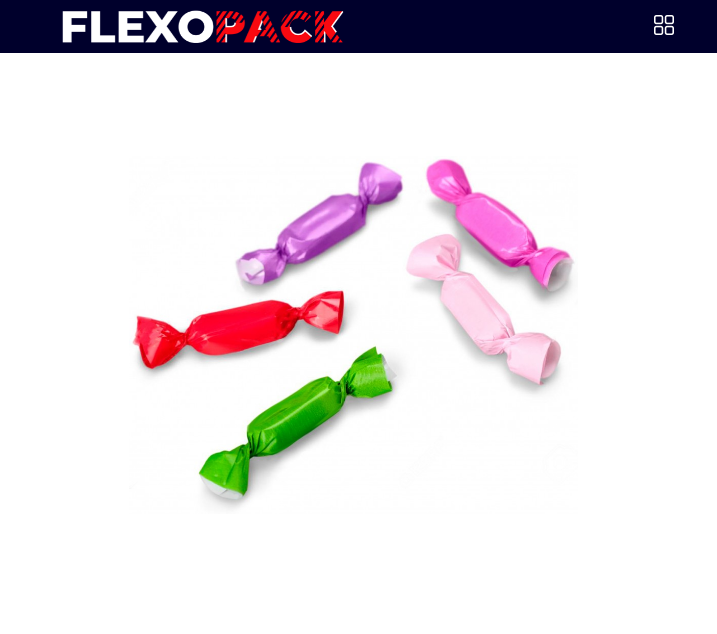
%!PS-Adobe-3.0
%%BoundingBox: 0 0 717 634
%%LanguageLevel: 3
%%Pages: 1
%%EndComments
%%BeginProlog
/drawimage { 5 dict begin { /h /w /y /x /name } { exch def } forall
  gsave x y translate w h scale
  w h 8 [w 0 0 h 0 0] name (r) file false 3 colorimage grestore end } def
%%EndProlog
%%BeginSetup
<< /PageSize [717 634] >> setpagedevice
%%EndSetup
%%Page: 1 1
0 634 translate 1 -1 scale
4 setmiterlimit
1 setgray
0 0 717 634 rectfill
0 0 0.173 setrgbcolor
0 0 717 53 rectfill
(images/1.raw) 62 10 282 33 drawimage
(images/2.raw) 654 15 20 20 drawimage
(images/3.raw) 129 156 449 358 drawimage
showpage
%%EOF
